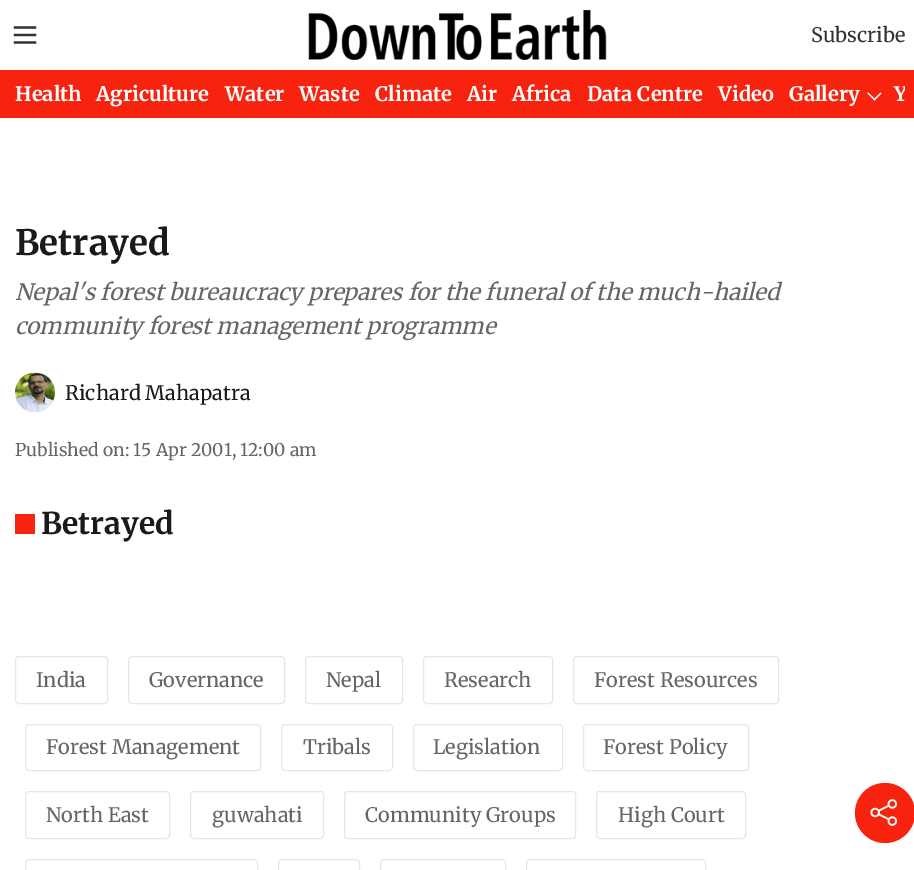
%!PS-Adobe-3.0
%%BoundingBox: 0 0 914 870
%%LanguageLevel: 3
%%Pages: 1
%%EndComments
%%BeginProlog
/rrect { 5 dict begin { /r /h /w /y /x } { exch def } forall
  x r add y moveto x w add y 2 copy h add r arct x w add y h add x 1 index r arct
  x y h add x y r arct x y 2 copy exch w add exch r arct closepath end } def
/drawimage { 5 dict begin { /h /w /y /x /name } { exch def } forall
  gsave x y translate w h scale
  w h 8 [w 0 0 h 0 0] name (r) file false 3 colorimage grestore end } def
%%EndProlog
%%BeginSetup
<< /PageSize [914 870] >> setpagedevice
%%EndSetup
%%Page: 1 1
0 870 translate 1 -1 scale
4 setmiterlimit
1 setgray
0 0 914 870 rectfill
(images/1.raw) 13 26 24 18 drawimage
(images/2.raw) 308 10 299 50 drawimage
0.969 0.137 0.059 setrgbcolor
0 70 914 48 rectfill
1 setgray
newpath 880.5 92.5 moveto 881.5 93.5 lineto 874.5 100.5 lineto 873.5 99.5 lineto closepath fill
newpath 868 92.5 moveto 875.5 99.5 lineto 874.5 100.5 lineto 867.5 93.5 lineto closepath fill
(images/3.raw) 15 372 40 41 drawimage
0.969 0.137 0.059 setrgbcolor
15 514 20 20 rectfill
0.902 setgray
15.5 656.5 92 47 3.5 rrect stroke
128.5 656.5 156 47 3.5 rrect stroke
305.5 656.5 97 47 3.5 rrect stroke
423.5 656.5 129 47 3.5 rrect stroke
573.5 656.5 205 47 3.5 rrect stroke
25.5 724.5 235 46 3.5 rrect stroke
281.5 724.5 111 46 3.5 rrect stroke
413.5 724.5 149 46 3.5 rrect stroke
583.5 724.5 165 46 3.5 rrect stroke
25.5 791.5 144 47 3.5 rrect stroke
190.5 791.5 133 47 3.5 rrect stroke
344.5 791.5 231 47 3.5 rrect stroke
596.5 791.5 149 47 3.5 rrect stroke
25.5 859.5 232 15 3.5 rrect stroke
278.5 859.5 81 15 3.5 rrect stroke
380.5 859.5 125 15 3.5 rrect stroke
526.5 859.5 179 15 3.5 rrect stroke
0.969 0.137 0.059 setrgbcolor
newpath 885 813 30 0 360 arc closepath fill
(images/4.raw) 870 799 27 27 drawimage
/Merriweather-Light [20 0 0 -20 0 0] selectfont
0.2 setgray
811 42 moveto (Subscribe) show
/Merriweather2-Light [20 0 0 -20 0 0] selectfont
1 setgray
15 101 moveto (Health) show
96 101 moveto (Agriculture) show
225 101 moveto (Water) show
299 101 moveto (Waste) show
375 101 moveto (Climate) show
467 101 moveto (Air) show
512 101 moveto (Africa) show
587 101 moveto (Data Centre) show
718 101 moveto (Video) show
789 101 moveto (Gallery) show
gsave
0 70 905 48 rectclip
894 101 moveto (Y) show
grestore
/Merriweather2-Light [35 0 0 -35 0 0] selectfont
0.102 setgray
15 255 moveto (Betrayed) show
/Merriweather-LightItalic [22.5 0 0 -22.5 0 0] selectfont
0.4 setgray
15 300 moveto (Nepal's forest bureaucracy prepares for the funeral of the much-hailed) show
15 334 moveto (community forest management programme) show
/Merriweather-Light [20 0 0 -20 0 0] selectfont
0.102 setgray
65 400 moveto (Richard Mahapatra) show
/Merriweather-Light [17.5 0 0 -17.5 0 0] selectfont
0.4 setgray
15 456 moveto (Published on: 15 Apr 2001, 12:00 am) show
/Merriweather2-Light [30 0 0 -30 0 0] selectfont
0.102 setgray
41 534 moveto (Betrayed) show
/Merriweather-Light [20 0 0 -20 0 0] selectfont
0.4 setgray
36 687 moveto (India) show
149 687 moveto (Governance) show
326 687 moveto (Nepal) show
444 687 moveto (Research) show
594 687 moveto (Forest Resources) show
46 754 moveto (Forest Management) show
303 754 moveto (Tribals) show
433 754 moveto (Legislation) show
603 754 moveto (Forest Policy) show
46 822 moveto (North East) show
212 822 moveto (guwahati) show
365 822 moveto (Community Groups) show
618 822 moveto (High Court) show
showpage
%%EOF
